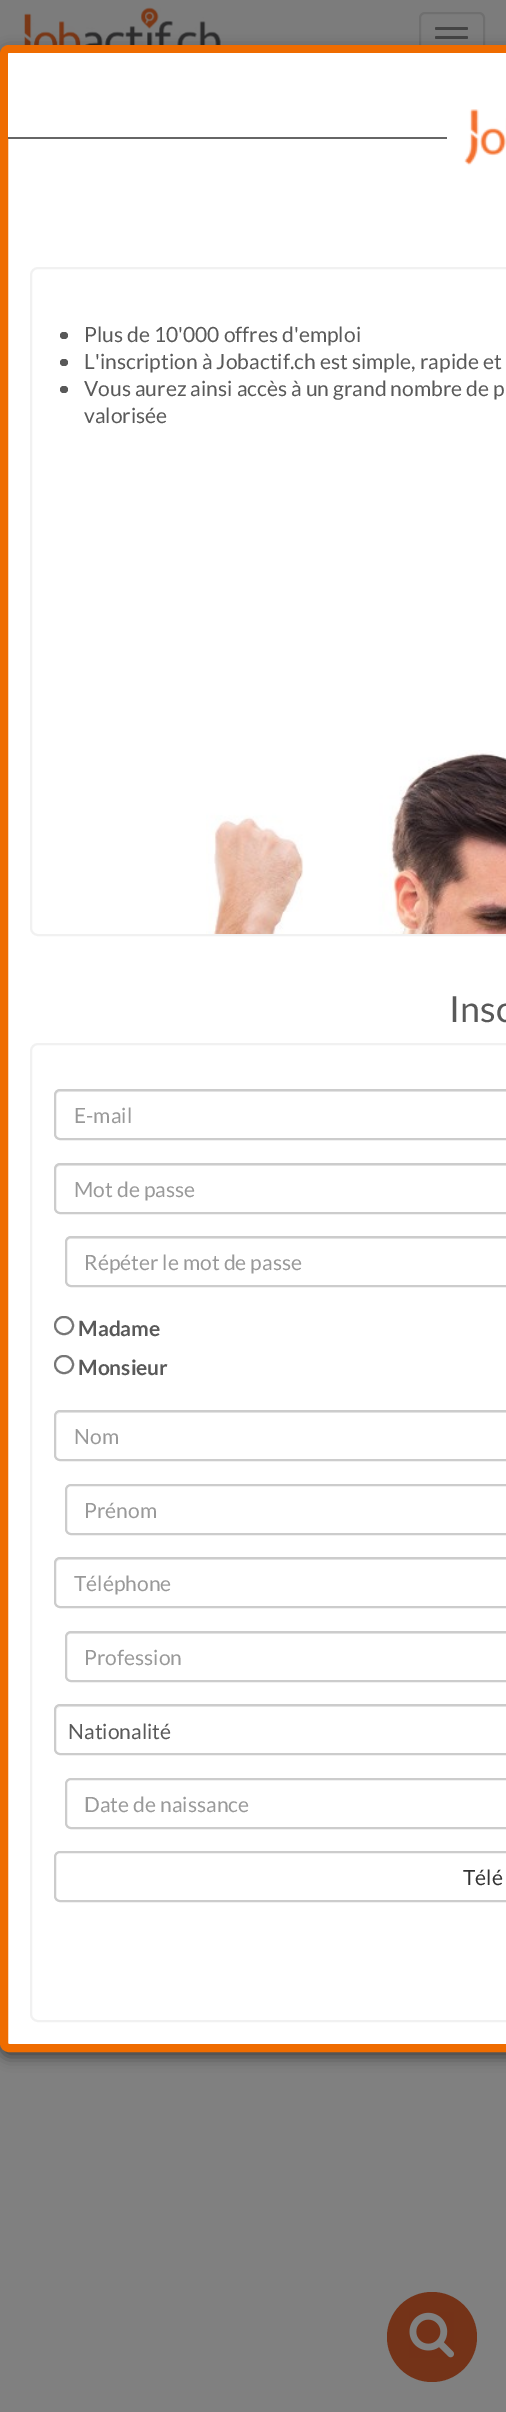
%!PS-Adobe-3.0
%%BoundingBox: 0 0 506 2412
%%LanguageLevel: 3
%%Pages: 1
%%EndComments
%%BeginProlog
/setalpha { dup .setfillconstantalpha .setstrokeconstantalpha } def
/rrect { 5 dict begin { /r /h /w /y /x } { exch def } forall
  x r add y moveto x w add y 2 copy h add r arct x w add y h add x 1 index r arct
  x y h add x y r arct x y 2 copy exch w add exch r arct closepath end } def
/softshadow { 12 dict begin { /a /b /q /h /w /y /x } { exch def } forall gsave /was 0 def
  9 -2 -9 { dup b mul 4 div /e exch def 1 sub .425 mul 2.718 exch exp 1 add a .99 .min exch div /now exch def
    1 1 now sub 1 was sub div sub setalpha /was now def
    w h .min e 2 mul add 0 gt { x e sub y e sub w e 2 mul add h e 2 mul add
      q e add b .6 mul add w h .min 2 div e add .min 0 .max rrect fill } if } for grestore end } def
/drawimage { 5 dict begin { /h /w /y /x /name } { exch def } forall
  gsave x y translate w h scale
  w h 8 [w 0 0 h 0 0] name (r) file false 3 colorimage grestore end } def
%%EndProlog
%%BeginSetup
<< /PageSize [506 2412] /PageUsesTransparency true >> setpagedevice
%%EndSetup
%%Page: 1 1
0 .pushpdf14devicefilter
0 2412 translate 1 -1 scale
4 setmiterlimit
0.502 setgray
0 0 506 2412 rectfill
0.486 setgray
0 0 506 55 rectfill
(images/1.raw) 24 7 197 38 drawimage
0.435 setgray
2 setlinewidth
420 13 64 49 5 rrect stroke
0.267 setgray
435 27 33 3 1.5 rrect fill
435 36 33 3 1.5 rrect fill
0 setgray
0 50 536 2007 9 7 0.5 softshadow
1 setgray
newpath 9.5 53 moveto 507 53 lineto 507 2045 lineto 9.5 2045 lineto 8.5 2045 8 2044.5 8 2043.5 curveto 8 54.5 lineto 8 53.5 8.5 53 9.5 53 curveto closepath fill
0.937 0.424 0 setrgbcolor
8 setlinewidth
4 49 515 1999 5 rrect stroke
1 setgray
newpath 9.5 53 moveto 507 53 lineto 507 138 lineto 8 138 lineto 8 54.5 lineto 8 53.5 8.5 53 9.5 53 curveto closepath fill
0.4 setgray
8 137 439 2 rectfill
(images/2.raw) 464 109 42 57 drawimage
(images/3.raw) 206 750 300 184 drawimage
0.945 setgray
2 setlinewidth
31 268 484 667 7 rrect stroke
0.349 setgray
60 332 8 7 3.5 rrect fill
60 359 8 7 3.5 rrect fill
60 386 8 7 3.5 rrect fill
0.945 setgray
31 1044 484 977 7 rrect stroke
0.925 setgray
newpath 60 1092 moveto 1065 1092 lineto 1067 1092 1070 1094 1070 1096 curveto 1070 1093 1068 1091 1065 1091 curveto 61 1091 lineto 58 1091 56 1093 56 1096 curveto 56 1094 58 1092 60 1092 curveto closepath fill
0.8 setgray
55 1090 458 49 5 rrect stroke
0.925 setgray
newpath 60 1166 moveto 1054 1166 lineto 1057 1166 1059 1168 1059 1170 curveto 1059 1167 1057 1164 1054 1164 curveto 61 1164 lineto 58 1164 56 1167 56 1170 curveto 56 1168 58 1166 60 1166 curveto closepath fill
0.8 setgray
55 1164 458 49 5 rrect stroke
0.925 setgray
newpath 70 1239 moveto 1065 1239 lineto 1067 1239 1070 1241 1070 1244 curveto 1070 1241 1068 1238 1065 1238 curveto 71 1238 lineto 68 1238 66 1241 66 1244 curveto 66 1241 68 1239 70 1239 curveto closepath fill
0.8 setgray
66 1237 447 49 5 rrect stroke
0.463 setgray
55 1317 18 17 8.5 rrect stroke
55 1356 18 17 8.5 rrect stroke
0.925 setgray
newpath 60 1413 moveto 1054 1413 lineto 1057 1413 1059 1415 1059 1418 curveto 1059 1415 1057 1412 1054 1412 curveto 61 1412 lineto 58 1412 56 1415 56 1418 curveto 56 1415 58 1413 60 1413 curveto closepath fill
0.8 setgray
55 1411 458 49 5 rrect stroke
66 1485 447 49 5 rrect stroke
0.925 setgray
newpath 60 1560 moveto 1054 1560 lineto 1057 1560 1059 1562 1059 1564 curveto 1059 1561 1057 1559 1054 1559 curveto 61 1559 lineto 58 1559 56 1561 56 1564 curveto 56 1562 58 1560 60 1560 curveto closepath fill
0.8 setgray
55 1558 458 49 5 rrect stroke
0.925 setgray
newpath 70 1634 moveto 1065 1634 lineto 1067 1634 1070 1636 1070 1638 curveto 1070 1635 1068 1632 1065 1632 curveto 71 1632 lineto 68 1632 66 1635 66 1638 curveto 66 1636 68 1634 70 1634 curveto closepath fill
0.8 setgray
66 1632 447 49 5 rrect stroke
0.925 setgray
newpath 60 1707 moveto 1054 1707 lineto 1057 1707 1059 1709 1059 1712 curveto 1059 1709 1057 1706 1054 1706 curveto 61 1706 lineto 58 1706 56 1709 56 1712 curveto 56 1709 58 1707 60 1707 curveto closepath fill
0.8 setgray
55 1705 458 49 5 rrect stroke
66 1779 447 49 5 rrect stroke
55 1852 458 49 5 rrect stroke
0.455 0.2 0.094 setrgbcolor
newpath 432 2337 45 0 360 arc closepath fill
(images/4.raw) 409 2312 45 46 drawimage
/Lato-Regular [21 0 0 -21 0 0] selectfont
0.349 setgray
84 342 moveto (Plus de 10'000 offres d'emploi) show
84 369 moveto (L'inscription à Jobactif.ch est simple, rapide et) show
84 396 moveto (Vous aurez ainsi accès à un grand nombre de p) show
84 423 moveto (valorisée) show
/Lato-Regular [36 0 0 -36 0 0] selectfont
449 1022 moveto (Insc) show
/Lato-Regular [21 0 0 -21 0 0] selectfont
0.6 setgray
74 1123 moveto (E-mail) show
74 1197 moveto (Mot de passe) show
84 1270 moveto (Répéter le mot de passe) show
/Lato-Bold [21 0 0 -21 0 0] selectfont
0.349 setgray
78 1336 moveto (Madame) show
78 1375 moveto (Monsieur) show
/Lato-Regular [21 0 0 -21 0 0] selectfont
0.6 setgray
74 1444 moveto (Nom) show
84 1518 moveto (Prénom) show
74 1591 moveto (Téléphone) show
84 1665 moveto (Profession) show
0.349 setgray
68 1739 moveto (Nationalité) show
0.6 setgray
84 1812 moveto (Date de naissance) show
0.2 setgray
463 1885 moveto (Télé) show
.poppdf14devicefilter showpage
%%EOF
